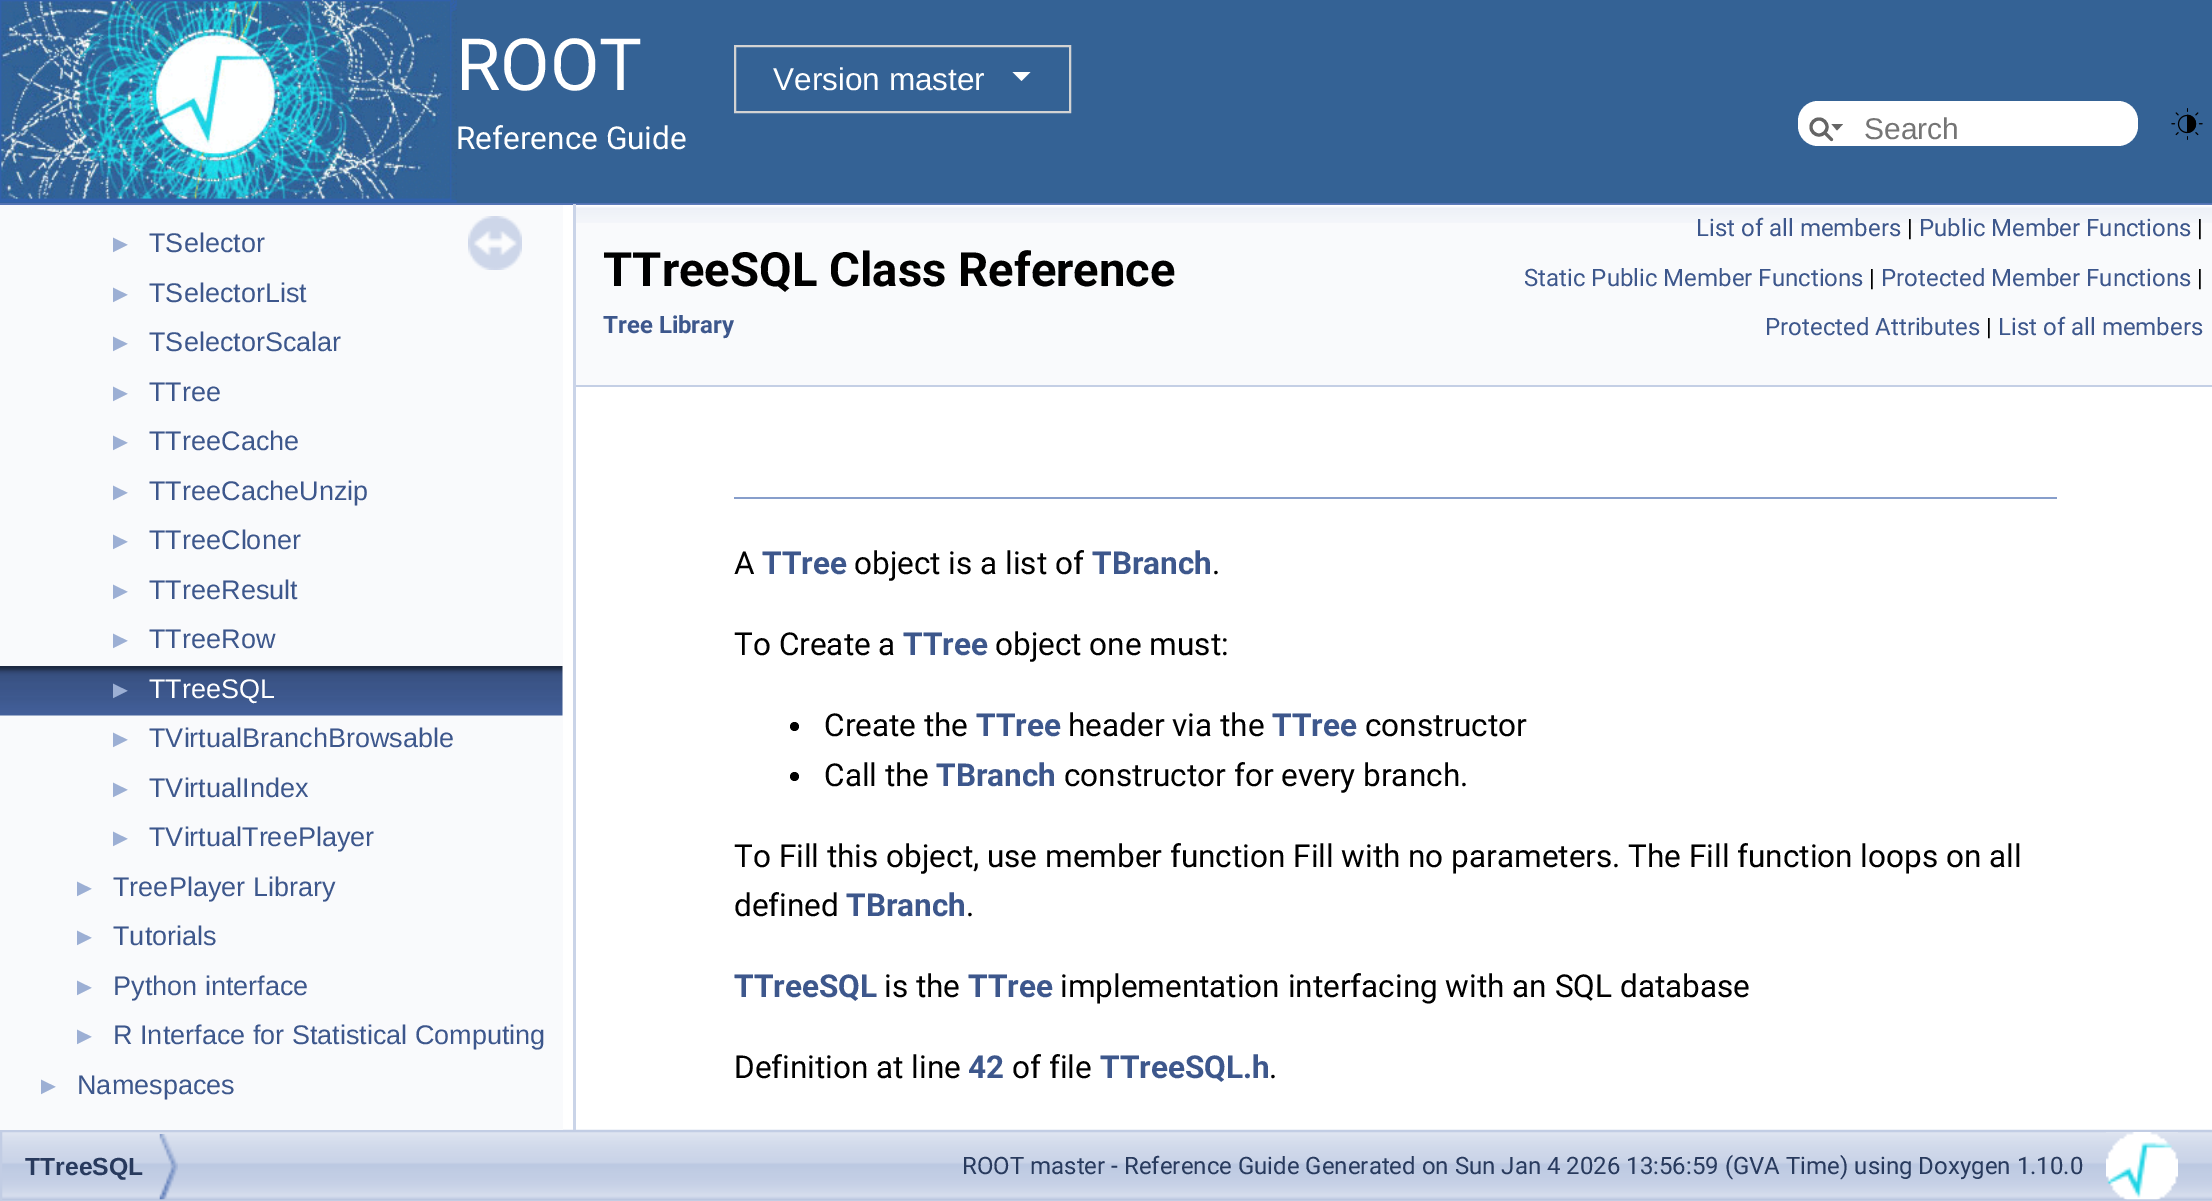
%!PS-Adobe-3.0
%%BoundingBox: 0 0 2212 1201
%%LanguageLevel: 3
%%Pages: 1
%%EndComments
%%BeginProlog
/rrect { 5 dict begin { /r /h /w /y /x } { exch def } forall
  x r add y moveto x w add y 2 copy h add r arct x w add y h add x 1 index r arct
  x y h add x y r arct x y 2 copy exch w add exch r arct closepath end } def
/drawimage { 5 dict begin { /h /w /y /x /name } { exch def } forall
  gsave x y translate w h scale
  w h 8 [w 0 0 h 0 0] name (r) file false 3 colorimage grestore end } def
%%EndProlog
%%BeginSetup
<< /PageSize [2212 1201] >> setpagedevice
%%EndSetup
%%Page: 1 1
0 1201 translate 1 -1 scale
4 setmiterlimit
1 setgray
0 0 2212 1201 rectfill
0.325 0.451 0.706 setrgbcolor
0 203 2212 2 rectfill
0.204 0.384 0.584 setrgbcolor
0 0 2212 203 rectfill
(images/1.raw) 0 0 457 203 drawimage
0.827 setgray
2 setlinewidth
735 46 335 66 rectstroke
1 setgray
newpath 1012.5 72 moveto 1030.5 72 lineto 1021.5 81 lineto closepath fill
1798 101 340 45 20 rrect fill
0.396 setgray
3.1 setlinewidth
newpath 1819 127 8 0 360 arc closepath stroke
newpath 1831.5 124 moveto 1837 130.5 lineto 1843 124 lineto closepath fill
1 setlinecap
newpath 1825 133 moveto 1831.5 139.5 lineto stroke
(images/2.raw) 2171 108 32 32 drawimage
(images/6.raw) 2 1129 2210 71 drawimage
0.976 0.98 0.988 setrgbcolor
0 205 563 925 rectfill
(images/3.raw) 468 216 54 54 drawimage
(images/4.raw) 0 666 563 50 drawimage
0.792 0.831 0.91 setrgbcolor
573 204 3 926 rectfill
0.976 0.98 0.988 setrgbcolor
576 223 1636 162 rectfill
(images/5.raw) 576 204 1636 19 drawimage
0.769 0.812 0.898 setrgbcolor
576 385 1636 2 rectfill
0.529 0.62 0.796 setrgbcolor
734 497 1323 2 rectfill
0 setgray
newpath 794.5 726.5 4.5 0 360 arc closepath fill
newpath 794.5 776.5 4.5 0 360 arc closepath fill
0.761 0.804 0.894 setrgbcolor
2 setlinewidth
0 setlinecap
1 1131 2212 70 rectstroke
(images/7.raw) 159 1134 19 66 drawimage
(images/8.raw) 2106 1132 72 68 drawimage
/Roboto-Regular [72 0 0 -72 0 0] selectfont
1 setgray
456 90 moveto (ROOT) show
/LiberationSans-Regular [31.5 0 0 -31.5 0 0] selectfont
773 90 moveto (Version master) show
/Roboto-Regular [31.5 0 0 -31.5 0 0] selectfont
456 149 moveto (Reference Guide) show
/LiberationSans-Regular [30 0 0 -30 0 0] selectfont
0.459 setgray
1864 139 moveto (Search) show
/LiberationSans-Regular [25 0 0 -25 0 0] selectfont
0.612 0.686 0.831 setrgbcolor
108 252 moveto (►) show
/LiberationSans-Regular [27 0 0 -27 0 0] selectfont
0.239 0.341 0.549 setrgbcolor
149 252 moveto (TSelector) show
/LiberationSans-Regular [25 0 0 -25 0 0] selectfont
0.612 0.686 0.831 setrgbcolor
108 302 moveto (►) show
/LiberationSans-Regular [27 0 0 -27 0 0] selectfont
0.239 0.341 0.549 setrgbcolor
149 302 moveto (TSelectorList) show
/LiberationSans-Regular [25 0 0 -25 0 0] selectfont
0.612 0.686 0.831 setrgbcolor
108 351 moveto (►) show
/LiberationSans-Regular [27 0 0 -27 0 0] selectfont
0.239 0.341 0.549 setrgbcolor
149 351 moveto (TSelectorScalar) show
/LiberationSans-Regular [25 0 0 -25 0 0] selectfont
0.612 0.686 0.831 setrgbcolor
108 401 moveto (►) show
/LiberationSans-Regular [27 0 0 -27 0 0] selectfont
0.239 0.341 0.549 setrgbcolor
149 401 moveto (TTree) show
/LiberationSans-Regular [25 0 0 -25 0 0] selectfont
0.612 0.686 0.831 setrgbcolor
108 450 moveto (►) show
/LiberationSans-Regular [27 0 0 -27 0 0] selectfont
0.239 0.341 0.549 setrgbcolor
149 450 moveto (TTreeCache) show
/LiberationSans-Regular [25 0 0 -25 0 0] selectfont
0.612 0.686 0.831 setrgbcolor
108 500 moveto (►) show
/LiberationSans-Regular [27 0 0 -27 0 0] selectfont
0.239 0.341 0.549 setrgbcolor
149 500 moveto (TTreeCacheUnzip) show
/LiberationSans-Regular [25 0 0 -25 0 0] selectfont
0.612 0.686 0.831 setrgbcolor
108 549 moveto (►) show
/LiberationSans-Regular [27 0 0 -27 0 0] selectfont
0.239 0.341 0.549 setrgbcolor
149 549 moveto (TTreeCloner) show
/LiberationSans-Regular [25 0 0 -25 0 0] selectfont
0.612 0.686 0.831 setrgbcolor
108 599 moveto (►) show
/LiberationSans-Regular [27 0 0 -27 0 0] selectfont
0.239 0.341 0.549 setrgbcolor
149 599 moveto (TTreeResult) show
/LiberationSans-Regular [25 0 0 -25 0 0] selectfont
0.612 0.686 0.831 setrgbcolor
108 648 moveto (►) show
/LiberationSans-Regular [27 0 0 -27 0 0] selectfont
0.239 0.341 0.549 setrgbcolor
149 648 moveto (TTreeRow) show
/LiberationSans-Regular [25 0 0 -25 0 0] selectfont
0.612 0.686 0.831 setrgbcolor
108 698 moveto (►) show
/LiberationSans-Regular [27 0 0 -27 0 0] selectfont
1 setgray
149 698 moveto (TTreeSQL) show
/LiberationSans-Regular [25 0 0 -25 0 0] selectfont
0.612 0.686 0.831 setrgbcolor
108 747 moveto (►) show
/LiberationSans-Regular [27 0 0 -27 0 0] selectfont
0.239 0.341 0.549 setrgbcolor
149 747 moveto (TVirtualBranchBrowsable) show
/LiberationSans-Regular [25 0 0 -25 0 0] selectfont
0.612 0.686 0.831 setrgbcolor
108 797 moveto (►) show
/LiberationSans-Regular [27 0 0 -27 0 0] selectfont
0.239 0.341 0.549 setrgbcolor
149 797 moveto (TVirtualIndex) show
/LiberationSans-Regular [25 0 0 -25 0 0] selectfont
0.612 0.686 0.831 setrgbcolor
108 846 moveto (►) show
/LiberationSans-Regular [27 0 0 -27 0 0] selectfont
0.239 0.341 0.549 setrgbcolor
149 846 moveto (TVirtualTreePlayer) show
/LiberationSans-Regular [25 0 0 -25 0 0] selectfont
0.612 0.686 0.831 setrgbcolor
72 896 moveto (►) show
/LiberationSans-Regular [27 0 0 -27 0 0] selectfont
0.239 0.341 0.549 setrgbcolor
113 896 moveto (TreePlayer Library) show
/LiberationSans-Regular [25 0 0 -25 0 0] selectfont
0.612 0.686 0.831 setrgbcolor
72 945 moveto (►) show
/LiberationSans-Regular [27 0 0 -27 0 0] selectfont
0.239 0.341 0.549 setrgbcolor
113 945 moveto (Tutorials) show
/LiberationSans-Regular [25 0 0 -25 0 0] selectfont
0.612 0.686 0.831 setrgbcolor
72 995 moveto (►) show
/LiberationSans-Regular [27 0 0 -27 0 0] selectfont
0.239 0.341 0.549 setrgbcolor
113 995 moveto (Python interface) show
/LiberationSans-Regular [25 0 0 -25 0 0] selectfont
0.612 0.686 0.831 setrgbcolor
72 1044 moveto (►) show
/LiberationSans-Regular [27 0 0 -27 0 0] selectfont
0.239 0.341 0.549 setrgbcolor
113 1044 moveto (R Interface for Statistical Computing) show
/LiberationSans-Regular [25 0 0 -25 0 0] selectfont
0.612 0.686 0.831 setrgbcolor
36 1094 moveto (►) show
/LiberationSans-Regular [27 0 0 -27 0 0] selectfont
0.239 0.341 0.549 setrgbcolor
77 1094 moveto (Namespaces) show
/Roboto-Bold [47.25 0 0 -47.25 0 0] selectfont
0 setgray
603 286 moveto (TTreeSQL Class Reference) show
/Roboto-Bold [24 0 0 -24 0 0] selectfont
0.239 0.341 0.549 setrgbcolor
603 333 moveto (Tree Library) show
/Roboto-Regular [24 0 0 -24 0 0] selectfont
1696 236 moveto (List of all members) show
0 setgray
1907 236 moveto (|) show
0.239 0.341 0.549 setrgbcolor
1919 236 moveto (Public Member Functions) show
0 setgray
2197 236 moveto (|) show
0.239 0.341 0.549 setrgbcolor
1524 286 moveto (Static Public Member Functions) show
0 setgray
1869 286 moveto (|) show
0.239 0.341 0.549 setrgbcolor
1881 286 moveto (Protected Member Functions) show
0 setgray
2197 286 moveto (|) show
0.239 0.341 0.549 setrgbcolor
1765 335 moveto (Protected Attributes) show
0 setgray
1986 335 moveto (|) show
0.239 0.341 0.549 setrgbcolor
1998 335 moveto (List of all members) show
/Roboto-Regular [31.5 0 0 -31.5 0 0] selectfont
0 setgray
734 574 moveto (A) show
/Roboto-Bold [31.5 0 0 -31.5 0 0] selectfont
0.239 0.341 0.549 setrgbcolor
762 574 moveto (TTree) show
/Roboto-Regular [31.5 0 0 -31.5 0 0] selectfont
0 setgray
854 574 moveto (object is a list of) show
/Roboto-Bold [31.5 0 0 -31.5 0 0] selectfont
0.239 0.341 0.549 setrgbcolor
1092 574 moveto (TBranch) show
/Roboto-Regular [31.5 0 0 -31.5 0 0] selectfont
0 setgray
1212 574 moveto (.) show
734 655 moveto (To Create a) show
/Roboto-Bold [31.5 0 0 -31.5 0 0] selectfont
0.239 0.341 0.549 setrgbcolor
903 655 moveto (TTree) show
/Roboto-Regular [31.5 0 0 -31.5 0 0] selectfont
0 setgray
995 655 moveto (object one must:) show
824 736 moveto (Create the) show
/Roboto-Bold [31.5 0 0 -31.5 0 0] selectfont
0.239 0.341 0.549 setrgbcolor
976 736 moveto (TTree) show
/Roboto-Regular [31.5 0 0 -31.5 0 0] selectfont
0 setgray
1068 736 moveto (header via the) show
/Roboto-Bold [31.5 0 0 -31.5 0 0] selectfont
0.239 0.341 0.549 setrgbcolor
1272 736 moveto (TTree) show
/Roboto-Regular [31.5 0 0 -31.5 0 0] selectfont
0 setgray
1365 736 moveto (constructor) show
824 786 moveto (Call the) show
/Roboto-Bold [31.5 0 0 -31.5 0 0] selectfont
0.239 0.341 0.549 setrgbcolor
936 786 moveto (TBranch) show
/Roboto-Regular [31.5 0 0 -31.5 0 0] selectfont
0 setgray
1064 786 moveto (constructor for every branch.) show
734 867 moveto (To Fill this object, use member function Fill with no parameters. The Fill function loops on all) show
734 916 moveto (defined) show
/Roboto-Bold [31.5 0 0 -31.5 0 0] selectfont
0.239 0.341 0.549 setrgbcolor
846 916 moveto (TBranch) show
/Roboto-Regular [31.5 0 0 -31.5 0 0] selectfont
0 setgray
966 916 moveto (.) show
/Roboto-Bold [31.5 0 0 -31.5 0 0] selectfont
0.239 0.341 0.549 setrgbcolor
734 997 moveto (TTreeSQL) show
/Roboto-Regular [31.5 0 0 -31.5 0 0] selectfont
0 setgray
884 997 moveto (is the) show
/Roboto-Bold [31.5 0 0 -31.5 0 0] selectfont
0.239 0.341 0.549 setrgbcolor
968 997 moveto (TTree) show
/Roboto-Regular [31.5 0 0 -31.5 0 0] selectfont
0 setgray
1060 997 moveto (implementation interfacing with an SQL database) show
734 1078 moveto (Definition at line) show
/Roboto-Bold [31.5 0 0 -31.5 0 0] selectfont
0.239 0.341 0.549 setrgbcolor
968 1078 moveto (42) show
/Roboto-Regular [31.5 0 0 -31.5 0 0] selectfont
0 setgray
1012 1078 moveto (of file) show
/Roboto-Bold [31.5 0 0 -31.5 0 0] selectfont
0.239 0.341 0.549 setrgbcolor
1100 1078 moveto (TTreeSQL.h) show
/Roboto-Regular [31.5 0 0 -31.5 0 0] selectfont
0 setgray
1269 1078 moveto (.) show
/LiberationSans-Bold [24.75 0 0 -24.75 0 0] selectfont
0.157 0.227 0.365 setrgbcolor
25 1175 moveto (TTreeSQL) show
/Roboto-Regular [24 0 0 -24 0 0] selectfont
962 1174 moveto (ROOT master - Reference Guide Generated on Sun Jan 4 2026 13:56:59 \(GVA Time\) using Doxygen 1.10.0) show
showpage
%%EOF
